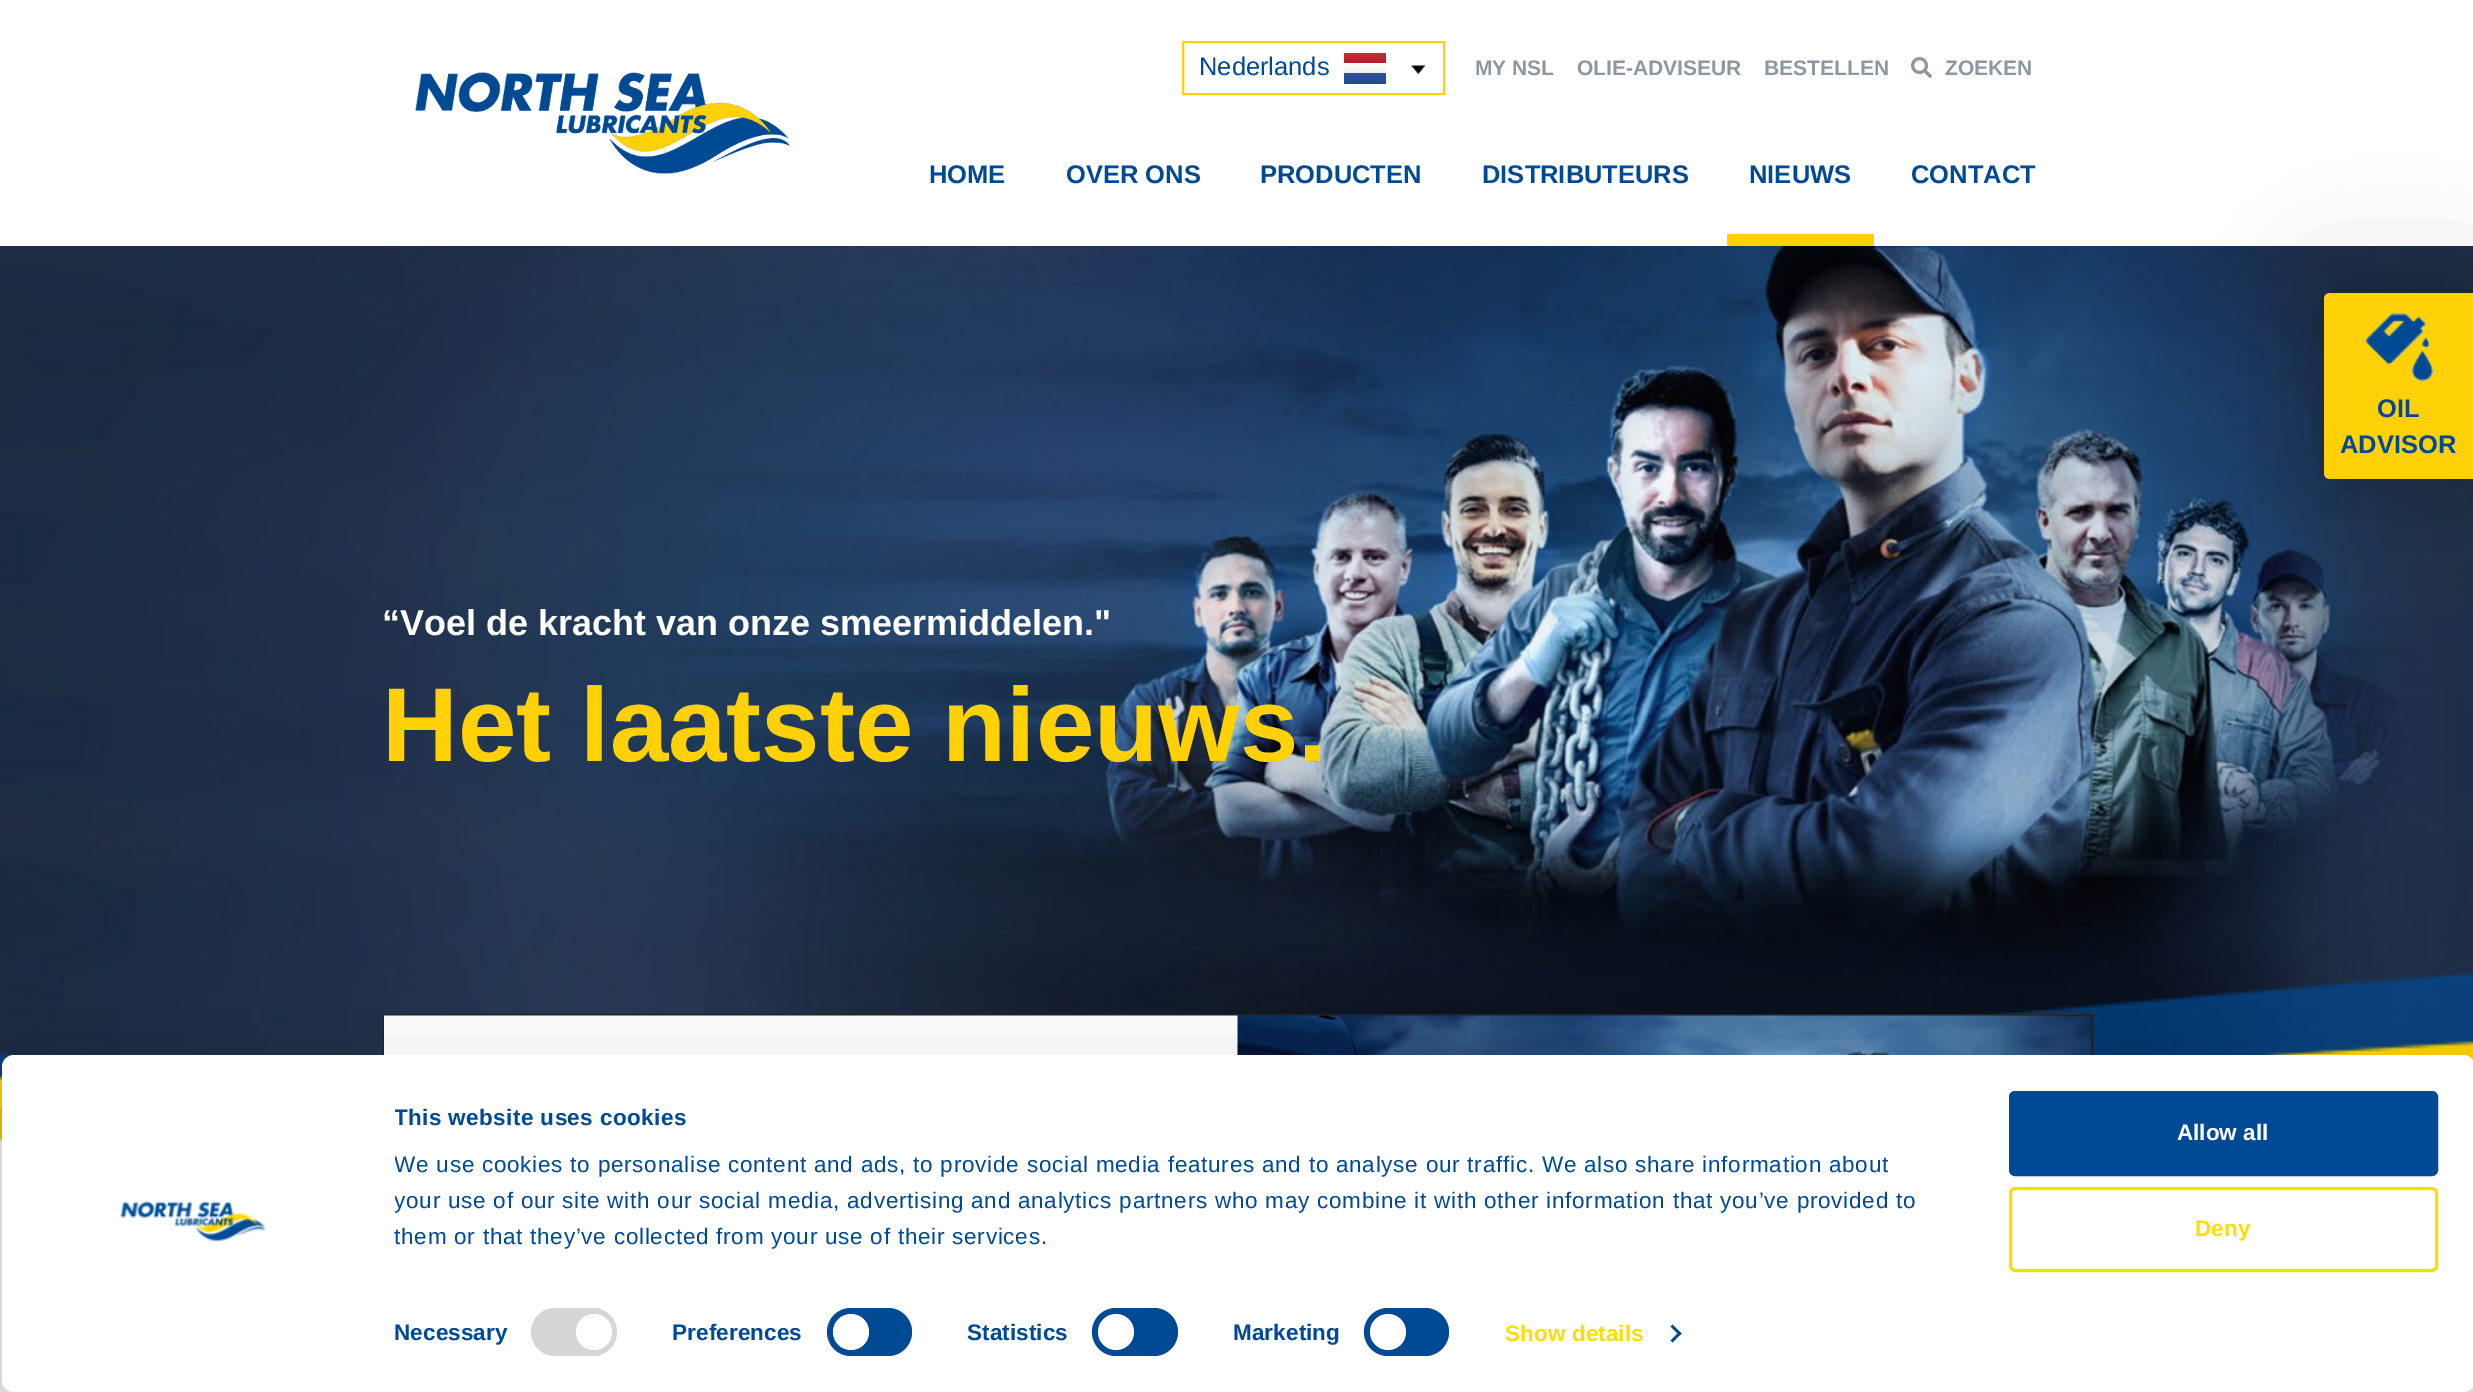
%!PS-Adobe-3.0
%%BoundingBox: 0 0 2473 1392
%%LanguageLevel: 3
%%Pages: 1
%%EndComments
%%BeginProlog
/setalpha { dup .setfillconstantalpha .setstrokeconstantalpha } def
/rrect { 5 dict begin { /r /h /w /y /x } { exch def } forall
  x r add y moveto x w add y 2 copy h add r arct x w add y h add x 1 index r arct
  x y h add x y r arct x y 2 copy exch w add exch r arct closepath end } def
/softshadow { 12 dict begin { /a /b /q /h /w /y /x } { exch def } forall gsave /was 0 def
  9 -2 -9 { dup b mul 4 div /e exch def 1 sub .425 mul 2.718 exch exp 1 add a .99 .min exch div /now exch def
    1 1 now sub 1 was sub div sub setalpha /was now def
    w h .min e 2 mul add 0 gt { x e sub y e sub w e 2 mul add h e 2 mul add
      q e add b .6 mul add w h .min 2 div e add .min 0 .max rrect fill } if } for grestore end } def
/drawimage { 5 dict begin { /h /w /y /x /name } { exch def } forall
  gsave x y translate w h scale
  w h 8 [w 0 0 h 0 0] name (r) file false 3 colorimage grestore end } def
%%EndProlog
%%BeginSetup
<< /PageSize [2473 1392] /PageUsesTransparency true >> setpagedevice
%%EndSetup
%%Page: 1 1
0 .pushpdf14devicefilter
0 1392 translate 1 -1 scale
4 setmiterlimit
1 setgray
0 0 2473 1392 rectfill
(images/1.raw) 415 72 375 102 drawimage
1 0.82 0.024 setrgbcolor
2 setlinewidth
1183 42 261 52 rectstroke
gsave newpath 1344 53 moveto 1386 53 lineto 1386 63 lineto 1344 63 lineto closepath clip newpath
<< /ShadingType 2 /ColorSpace /DeviceRGB /Coords [1366 53 1366 63] /Extend [true true] /Function << /FunctionType 2 /Domain [0 1] /C0 [0.792 0.169 0.224] /C1 [0.675 0.122 0.173] /N 1 >> >> shfill grestore
gsave newpath 1344 65 moveto 1386 65 lineto 1386 73 lineto 1344 73 lineto closepath clip newpath
<< /ShadingType 2 /ColorSpace /DeviceRGB /Coords [1366 63 1366 73] /Extend [true true] /Function << /FunctionType 2 /Domain [0 1] /C0 [1 1 1] /C1 [0.941 0.941 0.941] /N 1 >> >> shfill grestore
gsave newpath 1344 73 moveto 1386 73 lineto 1386 84 lineto 1344 84 lineto closepath clip newpath
<< /ShadingType 2 /ColorSpace /DeviceRGB /Coords [1366 73 1366 84] /Extend [true true] /Function << /FunctionType 2 /Domain [0 1] /C0 [0.173 0.337 0.635] /C1 [0.141 0.282 0.537] /N 1 >> >> shfill grestore
(images/2.raw) 1410 64 16 11 drawimage
(images/3.raw) 1911 57 21 21 drawimage
1727 234 147 12 rectfill
(images/5.raw) 0 246 2473 835 drawimage
0 setgray
2324 293 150 186 6 60 0.2 softshadow
1 0.82 0.024 setrgbcolor
newpath 2330 293 moveto 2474 293 lineto 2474 479 lineto 2330 479 lineto 2326.5 479 2324 476.5 2324 473 curveto 2324 299 lineto 2324 295.5 2326.5 293 2330 293 curveto closepath fill
(images/4.raw) 2365 313 69 69 drawimage
(images/6.raw) 0 972 2473 170 drawimage
0.133 setgray
384 1015 1708 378 rectstroke
(images/8.raw) 1185 1015 906 40 drawimage
(images/7.raw) 384 1015 854 40 drawimage
gsave
newpath 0 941 moveto 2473 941 lineto 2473 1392 lineto 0 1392 lineto closepath 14 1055 moveto 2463 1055 lineto 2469.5 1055 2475 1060.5 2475 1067 curveto 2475 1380 lineto 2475 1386.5 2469.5 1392 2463 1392 curveto 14 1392 lineto 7.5 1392 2 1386.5 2 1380 curveto 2 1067 lineto 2 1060.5 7.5 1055 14 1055 curveto closepath eoclip newpath
0 setgray
2 1100 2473 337 12 52.5 0.3 softshadow
grestore
1 setgray
2 1055 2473 337 12 rrect fill
(images/9.raw) 120 1201 146 41 drawimage
0.839 setgray
531 1308 86 48 24 rrect fill
1 setgray
newpath 594 1332 18 0 360 arc closepath fill
0 0.29 0.58 setrgbcolor
827 1308 85 48 24 rrect fill
1 setgray
newpath 851 1332 18 0 360 arc closepath fill
0 0.29 0.58 setrgbcolor
1092 1308 86 48 24 rrect fill
1 setgray
newpath 1116 1332 18 0 360 arc closepath fill
0 0.29 0.58 setrgbcolor
1364 1308 85 48 24 rrect fill
1 setgray
newpath 1388 1332 18 0 360 arc closepath fill
0 0.29 0.58 setrgbcolor
newpath 1672.5 1324.5 moveto 1681.5 1333.5 lineto 1679.5 1335.5 lineto 1670.5 1326.5 lineto closepath fill
newpath 1679.5 1331.5 moveto 1681.5 1333.5 lineto 1672.5 1342.5 lineto 1670.5 1340.5 lineto closepath fill
2010.5 1092.5 426 82 4.5 rrect gsave fill grestore
3 setlinewidth
stroke
1 0.867 0 setrgbcolor
2010.5 1188.5 426 82 4.5 rrect stroke
/LiberationSans-Regular [25.5 0 0 -25.5 0 0] selectfont
0 0.29 0.58 setrgbcolor
1199 75 moveto (Nederlands) show
/LiberationSans-Bold [21 0 0 -21 0 0] selectfont
0.553 0.592 0.631 setrgbcolor
1475 75 moveto (MY NSL) show
1577 75 moveto (OLIE-ADVISEUR) show
1764 75 moveto (BESTELLEN) show
1945 75 moveto (ZOEKEN) show
/LiberationSans-Bold [25.5 0 0 -25.5 0 0] selectfont
0 0.29 0.58 setrgbcolor
929 183 moveto (HOME) show
1066 183 moveto (OVER ONS) show
1260 183 moveto (PRODUCTEN) show
1482 183 moveto (DISTRIBUTEURS) show
1749 183 moveto (NIEUWS) show
1911 183 moveto (CONTACT) show
2377 417 moveto (OIL) show
2340 453 moveto (ADVISOR) show
/LiberationSans-Bold [36 0 0 -36 0 0] selectfont
1 setgray
382 635 moveto (“Voel de kracht van onze smeermiddelen.") show
/LiberationSans-Bold [105 0 0 -105 0 0] selectfont
1 0.82 0.024 setrgbcolor
382 761 moveto (Het laatste nieuws.) show
gsave
395 1100 1572 154 rectclip
/LiberationSans-Bold [22.5 0 0 -22.5 0 0] selectfont
0 0.29 0.58 setrgbcolor
394 1125 moveto 0.4 0 (This website uses cookies) ashow
/LiberationSans-Regular [22.5 0 0 -22.5 0 0] selectfont
394 1172 moveto 0.75 0 (We use cookies to personalise content and ads, to provide social media features and to analyse our traffic. We also share information about) ashow
394 1208 moveto 0.75 0 (your use of our site with our social media, advertising and analytics partners who may combine it with other information that you’ve provided to) ashow
grestore
/LiberationSans-Regular [22.5 0 0 -22.5 0 0] selectfont
0 0.29 0.58 setrgbcolor
394 1244 moveto 0.75 0 (them or that they’ve collected from your use of their services.) ashow
/LiberationSans-Bold [22.5 0 0 -22.5 0 0] selectfont
394 1340 moveto 0.1 0 (Necessary) ashow
672 1340 moveto 0.1 0 (Preferences) ashow
967 1340 moveto 0.1 0 (Statistics) ashow
1233 1340 moveto 0.1 0 (Marketing) ashow
1 0.867 0 setrgbcolor
1505 1341 moveto 0.1 0 (Show details) ashow
1 setgray
2177 1140 moveto (Allow all) show
1 0.867 0 setrgbcolor
2195 1236 moveto (Deny) show
.poppdf14devicefilter showpage
%%EOF
